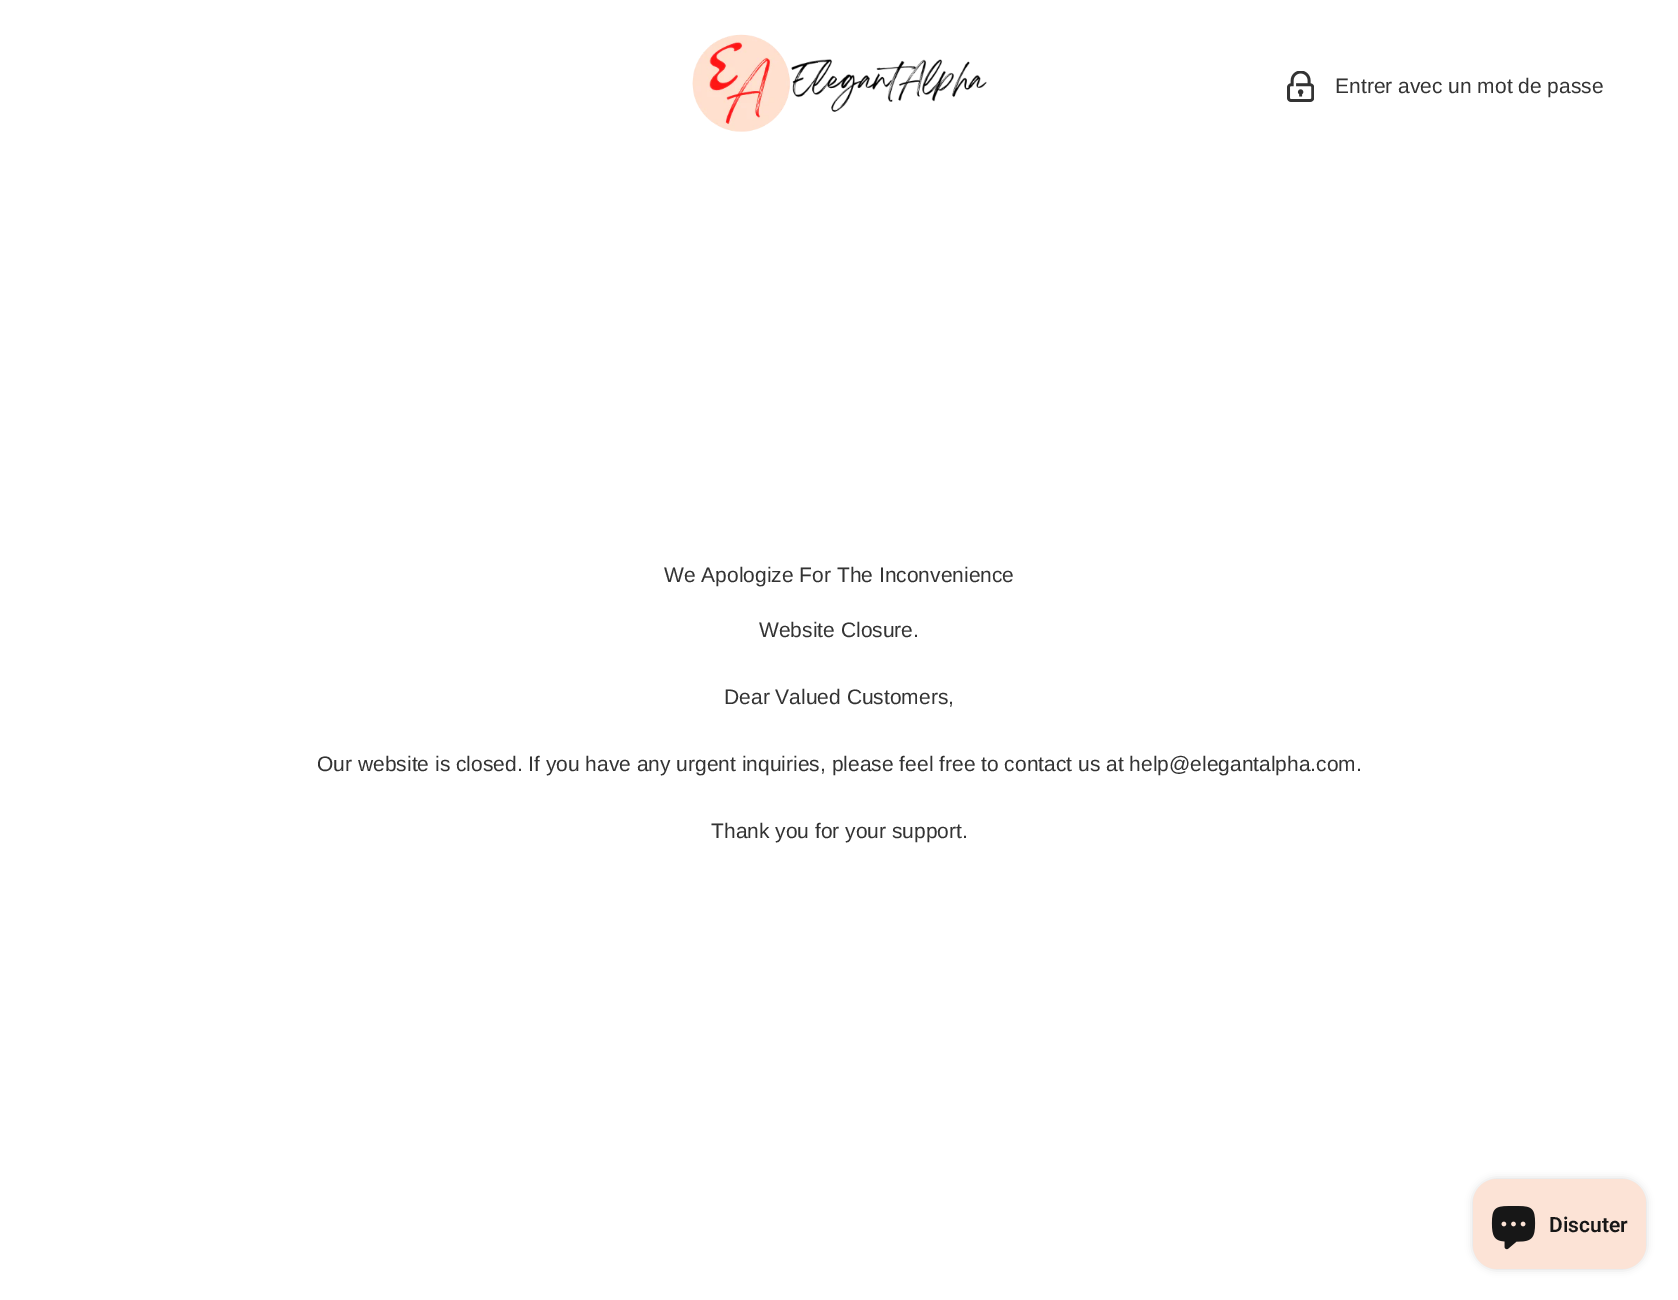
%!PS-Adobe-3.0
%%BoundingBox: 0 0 1678 1300
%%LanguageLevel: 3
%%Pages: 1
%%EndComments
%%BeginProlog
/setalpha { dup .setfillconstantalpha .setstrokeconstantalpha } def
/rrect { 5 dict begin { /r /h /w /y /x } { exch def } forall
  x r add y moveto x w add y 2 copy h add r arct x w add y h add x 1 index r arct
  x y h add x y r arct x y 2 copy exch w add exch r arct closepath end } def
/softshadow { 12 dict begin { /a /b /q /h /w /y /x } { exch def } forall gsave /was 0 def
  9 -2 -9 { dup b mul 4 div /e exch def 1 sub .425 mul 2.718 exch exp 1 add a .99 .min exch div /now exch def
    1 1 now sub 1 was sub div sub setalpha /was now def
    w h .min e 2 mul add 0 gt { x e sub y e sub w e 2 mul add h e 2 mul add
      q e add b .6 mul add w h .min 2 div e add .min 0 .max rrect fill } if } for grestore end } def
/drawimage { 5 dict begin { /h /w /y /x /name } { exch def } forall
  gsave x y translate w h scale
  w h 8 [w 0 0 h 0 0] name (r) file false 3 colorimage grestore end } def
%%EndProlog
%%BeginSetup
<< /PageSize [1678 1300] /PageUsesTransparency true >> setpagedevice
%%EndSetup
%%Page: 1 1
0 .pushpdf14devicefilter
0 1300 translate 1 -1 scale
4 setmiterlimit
1 setgray
0 0 1678 1300 rectfill
(images/1.raw) 692 34 295 98 drawimage
(images/2.raw) 1287 71 27 31 drawimage
0 setgray
1473 1179 173 90 24 4 0.15 softshadow
0.988 0.89 0.839 setrgbcolor
1473 1179 173 90 24 rrect fill
(images/3.raw) 1491 1206 45 44 drawimage
/Arimo-Regular [21 0 0 -21 0 0] selectfont
0.2 setgray
1335 93 moveto (Entrer avec un mot de passe) show
664 582 moveto (We Apologize For The Inconvenience) show
759 637 moveto (Website Closure.) show
724 704 moveto (Dear Valued Customers,) show
317 771 moveto (Our website is closed. If you have any urgent inquiries, please feel free to contact us at help@elegantalpha.com.) show
711 838 moveto (Thank you for your support.) show
/Roboto-SemiBold [21 0 0 -21 0 0] selectfont
0.09 setgray
1549 1232 moveto (Discuter) show
.poppdf14devicefilter showpage
%%EOF
